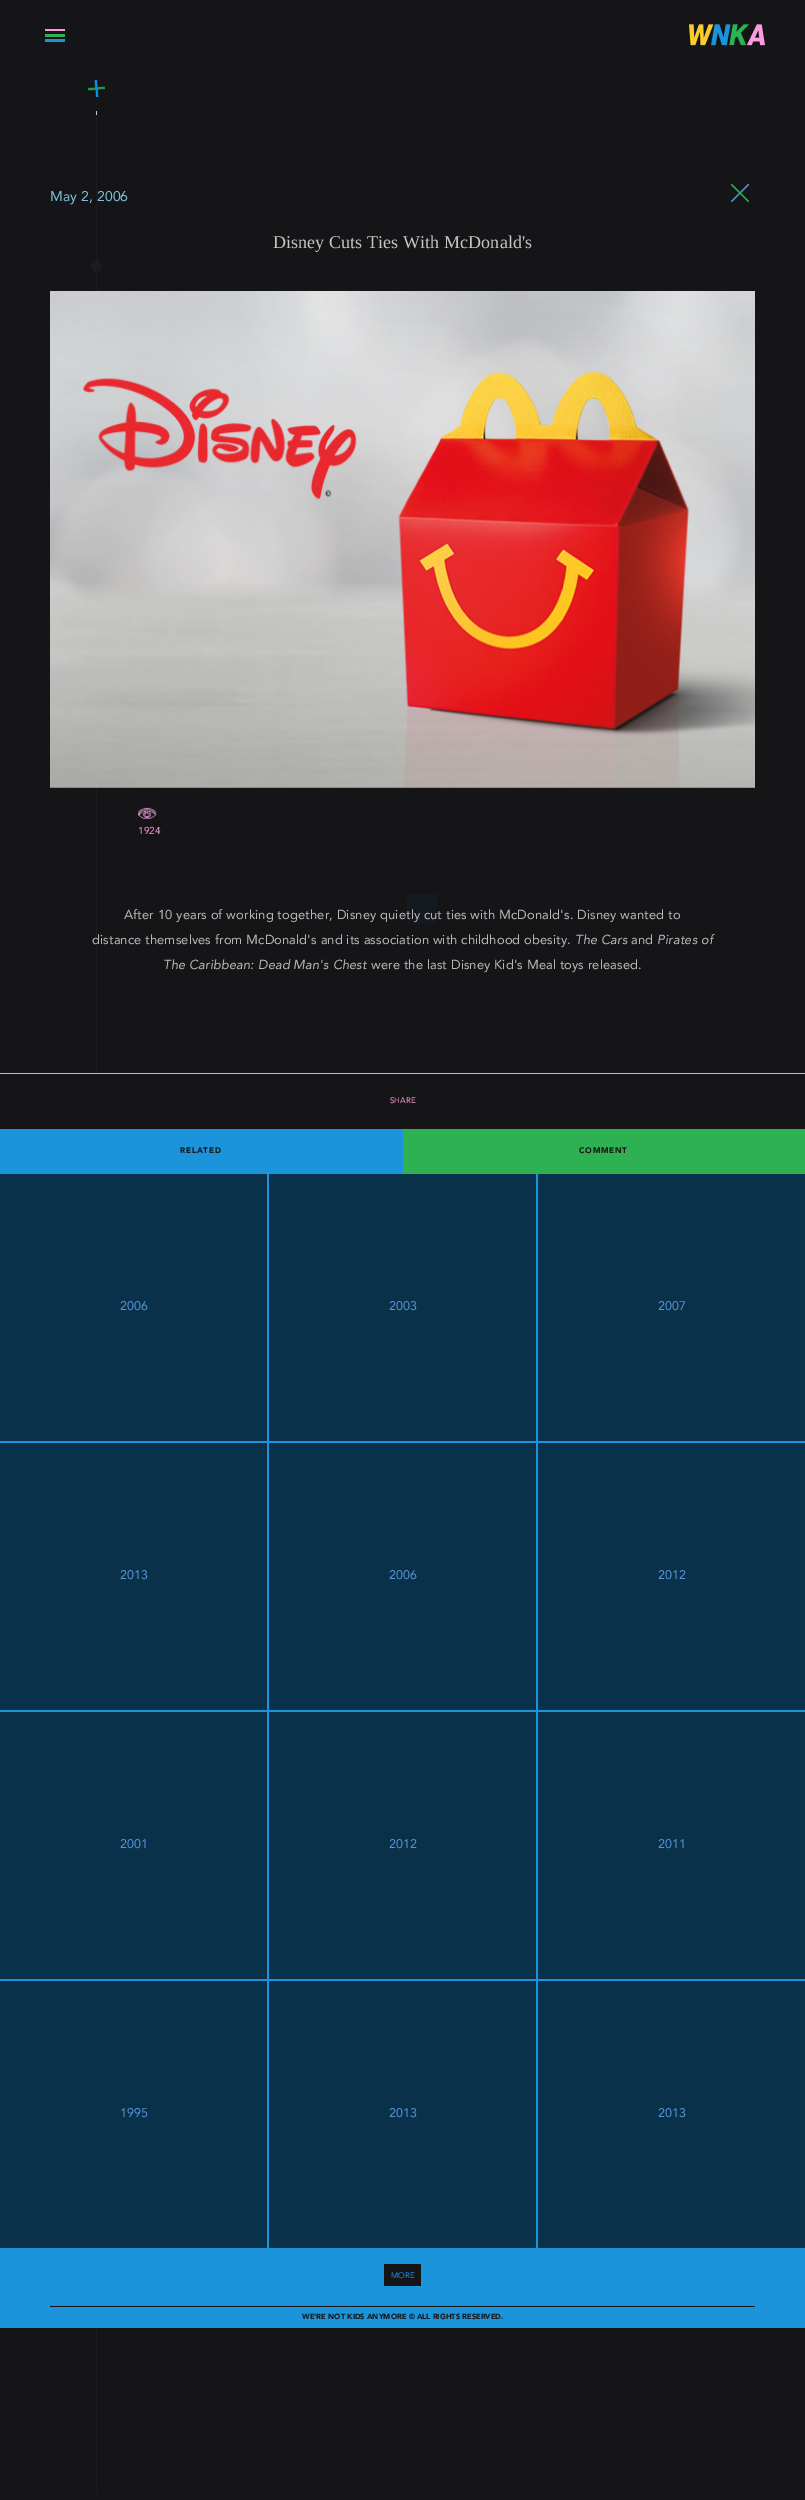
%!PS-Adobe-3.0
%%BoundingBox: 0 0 805 2500
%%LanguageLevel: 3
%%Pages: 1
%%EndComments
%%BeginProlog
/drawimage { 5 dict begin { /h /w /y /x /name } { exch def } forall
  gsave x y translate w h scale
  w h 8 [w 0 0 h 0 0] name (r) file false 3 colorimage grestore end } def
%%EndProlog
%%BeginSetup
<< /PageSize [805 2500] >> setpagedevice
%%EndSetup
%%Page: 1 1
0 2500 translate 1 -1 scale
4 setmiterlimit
0.082 0.082 0.094 setrgbcolor
0 0 805 2500 rectfill
0.973 0.604 0.859 setrgbcolor
45 29 20 2 rectfill
0.176 0.694 0.325 setrgbcolor
45 34 20 3 rectfill
0.106 0.58 0.863 setrgbcolor
45 39 20 3 rectfill
(images/1.raw) 689 24 76 22 drawimage
0.796 setgray
96 110 1 5 rectfill
0.082 0.082 0.094 setrgbcolor
96 110 1 1 rectfill
(images/2.raw) 88 79 17 19 drawimage
0.11 0.11 0.122 setrgbcolor
96 115 1 2378 rectfill
gsave
731 184 18 18 rectclip
0.337 0.58 0.847 setrgbcolor
1.2 setlinewidth
newpath 731 202 moveto 749 184 lineto stroke
0.176 0.694 0.325 setrgbcolor
newpath 731 184 moveto 749 202 lineto stroke
grestore
(images/3.raw) 50 291 705 497 drawimage
(images/4.raw) 138 807 19 12 drawimage
0.973 0.604 0.859 setrgbcolor
0 1073 805 1 rectfill
0.082 0.082 0.094 setrgbcolor
96 1074 1 55 rectfill
0.106 0.58 0.863 setrgbcolor
0 1129 403 45 rectfill
0.176 0.694 0.325 setrgbcolor
403 1129 402 45 rectfill
0.106 0.58 0.863 setrgbcolor
0 1174 805 1154 rectfill
0.035 0.192 0.286 setrgbcolor
0 1174 267 267 rectfill
269 1174 267 267 rectfill
538 1174 267 267 rectfill
0 1443 267 267 rectfill
269 1443 267 267 rectfill
538 1443 267 267 rectfill
0 1712 267 267 rectfill
269 1712 267 267 rectfill
538 1712 267 267 rectfill
0 1981 267 267 rectfill
269 1981 267 267 rectfill
538 1981 267 267 rectfill
0.082 0.082 0.094 setrgbcolor
384 2264 37 22 rectfill
50 2306 705 1 rectfill
0.082 0.102 0.125 setrgbcolor
407 894 30 30 rectfill
0.118 0.102 0.122 setrgbcolor
newpath 96.5 266.5 5.5 0 360 arc closepath fill
/Avenir-Regular [14 0 0 -14 0 0] selectfont
0.486 0.761 0.847 setrgbcolor
50 201 moveto 0.1 0 (May 2, 2006) ashow
/LiberationSerif-Regular [18 0 0 -18 0 0] selectfont
0.78 setgray
273 248 moveto 0.1 0 (Disney Cuts Ties With McDonald's) ashow
/Avenir-Regular [10 0 0 -10 0 0] selectfont
0.973 0.604 0.859 setrgbcolor
138 834 moveto (1924) show
/Avenir-Regular [13 0 0 -13 0 0] selectfont
0.718 setgray
124 919 moveto 0.1 0 (After 10 years of working together, Disney quietly cut ties with McDonald's. Disney wanted to) ashow
92 944 moveto 0.1 0 (distance themselves from McDonald's and its association with childhood obesity.) ashow
/Avenir-Italic [13 0 0 -13 0 0] selectfont
575 944 moveto 0.1 0 (The Cars) ashow
/Avenir-Regular [13 0 0 -13 0 0] selectfont
631 944 moveto 0.1 0 (and) ashow
/Avenir-Italic [13 0 0 -13 0 0] selectfont
657 944 moveto 0.1 0 (Pirates of) ashow
163 969 moveto 0.1 0 (The Caribbean: Dead Man's Chest) ashow
/Avenir-Regular [13 0 0 -13 0 0] selectfont
371 969 moveto 0.1 0 (were the last Disney Kid's Meal toys released.) ashow
/Avenir-Regular [8 0 0 -8 0 0] selectfont
0.973 0.604 0.859 setrgbcolor
390 1103 moveto (SHARE) show
/Avenir-Black [8 0 0 -8 0 0] selectfont
0.094 setgray
180 1153 moveto 0.75 0 (RELATED) ashow
579 1153 moveto 0.75 0 (COMMENT) ashow
/Avenir-Regular [12.5 0 0 -12.5 0 0] selectfont
0.337 0.576 0.847 setrgbcolor
120 1310 moveto (2006) show
389 1310 moveto (2003) show
658 1310 moveto (2007) show
120 1579 moveto (2013) show
389 1579 moveto (2006) show
658 1579 moveto (2012) show
120 1848 moveto (2001) show
389 1848 moveto (2012) show
658 1848 moveto (2011) show
120 2117 moveto (1995) show
389 2117 moveto (2013) show
658 2117 moveto (2013) show
/Avenir-Regular [8 0 0 -8 0 0] selectfont
0.106 0.58 0.863 setrgbcolor
391 2278 moveto (MORE) show
/Avenir-Black [7.5 0 0 -7.5 0 0] selectfont
0.094 setgray
302 2319 moveto (WE'RE NOT KIDS ANYMORE © ALL RIGHTS RESERVED.) show
showpage
%%EOF
